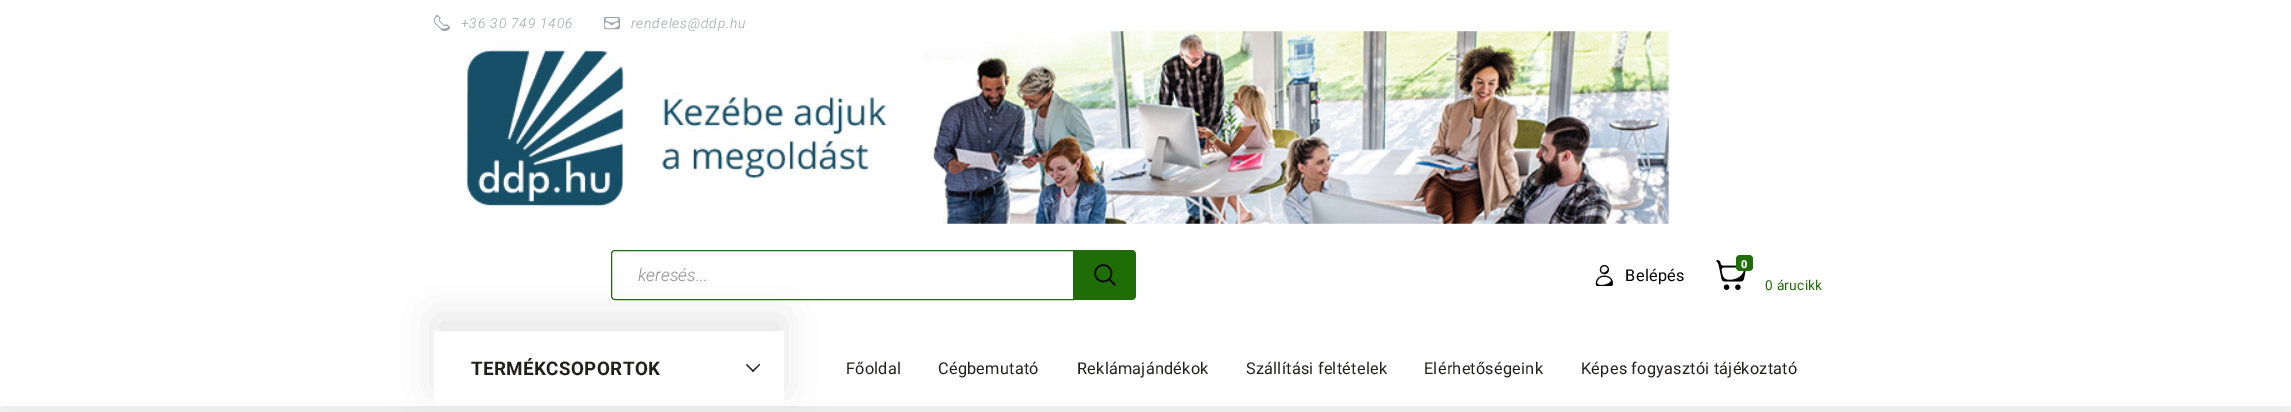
%!PS-Adobe-3.0
%%BoundingBox: 0 0 2291 412
%%LanguageLevel: 3
%%Pages: 1
%%EndComments
%%BeginProlog
/setalpha { dup .setfillconstantalpha .setstrokeconstantalpha } def
/rrect { 5 dict begin { /r /h /w /y /x } { exch def } forall
  x r add y moveto x w add y 2 copy h add r arct x w add y h add x 1 index r arct
  x y h add x y r arct x y 2 copy exch w add exch r arct closepath end } def
/softshadow { 12 dict begin { /a /b /q /h /w /y /x } { exch def } forall gsave /was 0 def
  9 -2 -9 { dup b mul 4 div /e exch def 1 sub .425 mul 2.718 exch exp 1 add a .99 .min exch div /now exch def
    1 1 now sub 1 was sub div sub setalpha /was now def
    w h .min e 2 mul add 0 gt { x e sub y e sub w e 2 mul add h e 2 mul add
      q e add b .6 mul add w h .min 2 div e add .min 0 .max rrect fill } if } for grestore end } def
/drawimage { 5 dict begin { /h /w /y /x /name } { exch def } forall
  gsave x y translate w h scale
  w h 8 [w 0 0 h 0 0] name (r) file false 3 colorimage grestore end } def
%%EndProlog
%%BeginSetup
<< /PageSize [2291 412] /PageUsesTransparency true >> setpagedevice
%%EndSetup
%%Page: 1 1
0 .pushpdf14devicefilter
0 412 translate 1 -1 scale
4 setmiterlimit
0.949 0.953 0.953 setrgbcolor
0 0 2291 412 rectfill
0 setgray
13 13 2266 381 0 15.5 0.15 softshadow
1 setgray
0 0 2291 406 rectfill
(images/1.raw) 434 15 16 16 drawimage
(images/2.raw) 604 17 16 13 drawimage
0.122 0.427 0.027 setrgbcolor
newpath 615 250.5 moveto 1073.5 250.5 lineto 1073.5 299.5 lineto 615 299.5 lineto 613 299.5 611.5 298 611.5 296 curveto 611.5 254 lineto 611.5 252 613 250.5 615 250.5 curveto closepath stroke
newpath 1074 250 moveto 1132 250 lineto 1134 250 1136 252 1136 254 curveto 1136 296 lineto 1136 298 1134 300 1132 300 curveto 1074 300 lineto closepath fill
(images/4.raw) 1094 264 22 22 drawimage
(images/5.raw) 1595 265 18 21 drawimage
(images/6.raw) 1716 260 30 30 drawimage
1736 255 17 16 4 rrect fill
gsave
newpath 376 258 moveto 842 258 lineto 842 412 lineto 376 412 lineto closepath 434 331 moveto 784 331 lineto 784 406 lineto 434 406 lineto closepath eoclip newpath
0 setgray
434 316 350 75 0 19 0.1 softshadow
grestore
0.129 0.122 0.114 setrgbcolor
newpath 759.5 364 moveto 760 365 lineto 753 372 lineto 752 371 lineto closepath fill
newpath 747 364 moveto 754 371 lineto 753 372 lineto 746 365 lineto closepath fill
/Roboto-LightItalic [13.75 0 0 -13.75 0 0] selectfont
0.604 0.631 0.678 setrgbcolor
461 28 moveto 0.9 0 (+36 30 749 1406) ashow
631 28 moveto 0.9 0 (rendeles@ddp.hu) ashow
(images/3.raw) 464 31 1205 193 drawimage
/Roboto-LightItalic [17.5 0 0 -17.5 0 0] selectfont
0.557 setgray
638 281 moveto (keresés...) show
/Roboto-Regular [16.25 0 0 -16.25 0 0] selectfont
0 setgray
1625 281 moveto 0.4 0 (Belépés) ashow
/Roboto-Black [11 0 0 -11 0 0] selectfont
1 setgray
1741 268 moveto 0.25 0 (0) ashow
/Roboto-Regular [13.75 0 0 -13.75 0 0] selectfont
0.122 0.427 0.027 setrgbcolor
1765 290 moveto 0.25 0 (0 árucikk) ashow
/Roboto-Bold [18.75 0 0 -18.75 0 0] selectfont
0.129 0.122 0.114 setrgbcolor
471 375 moveto 0.4 0 (TERMÉKCSOPORTOK) ashow
/Roboto-Regular [16.25 0 0 -16.25 0 0] selectfont
846 374 moveto 0.25 0 (Főoldal) ashow
938 374 moveto 0.25 0 (Cégbemutató) ashow
1077 374 moveto 0.25 0 (Reklámajándékok) ashow
1246 374 moveto 0.25 0 (Szállítási feltételek) ashow
1424 374 moveto 0.25 0 (Elérhetőségeink) ashow
1581 374 moveto 0.25 0 (Képes fogyasztói tájékoztató) ashow
.poppdf14devicefilter showpage
%%EOF
